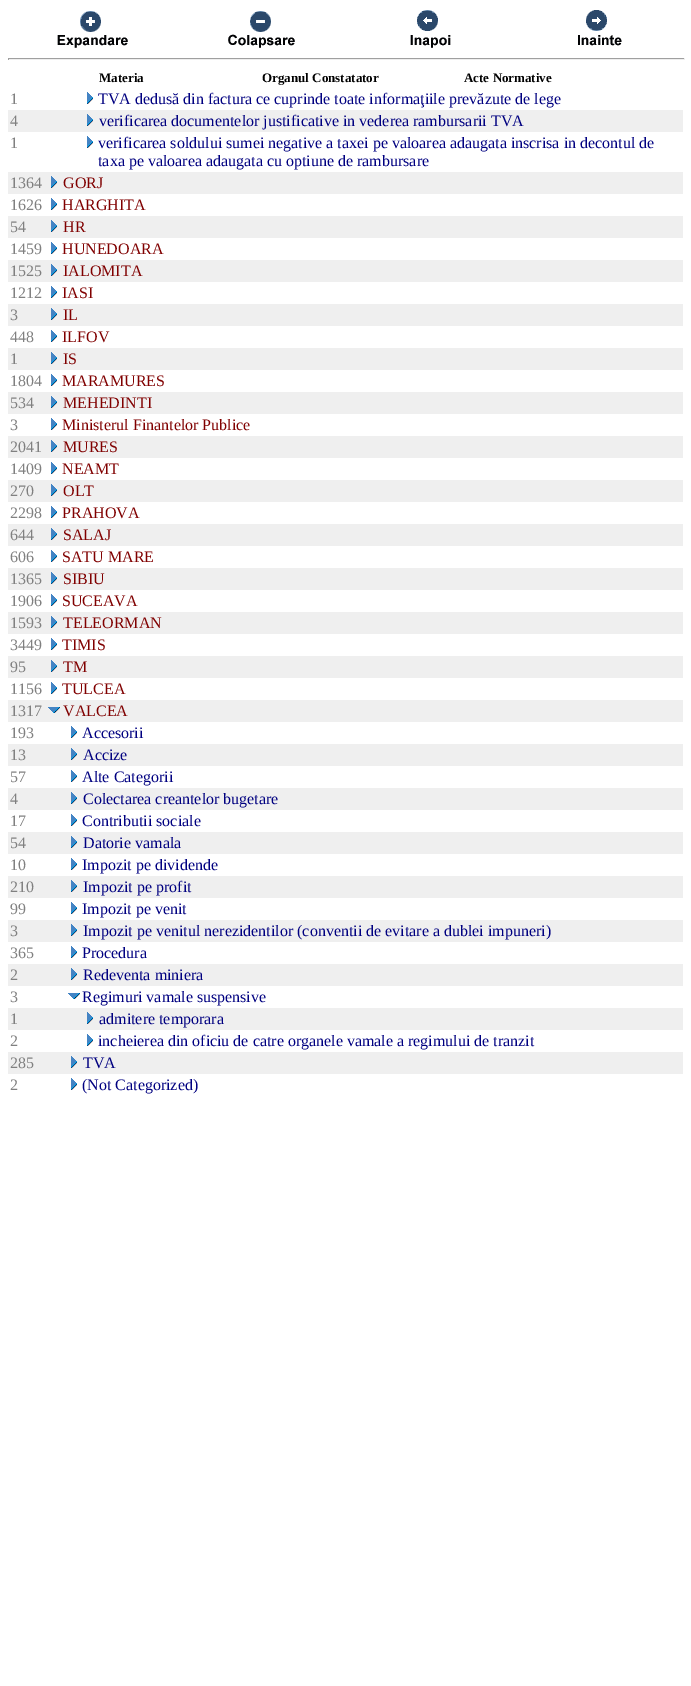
%!PS-Adobe-3.0
%%BoundingBox: 0 0 691 1686
%%LanguageLevel: 3
%%Pages: 1
%%EndComments
%%BeginProlog
/drawimage { 5 dict begin { /h /w /y /x /name } { exch def } forall
  gsave x y translate w h scale
  w h 8 [w 0 0 h 0 0] name (r) file false 3 colorimage grestore end } def
%%EndProlog
%%BeginSetup
<< /PageSize [691 1686] >> setpagedevice
%%EndSetup
%%Page: 1 1
0 1686 translate 1 -1 scale
4 setmiterlimit
1 setgray
0 0 691 1686 rectfill
(images/1.raw) 57 11 71 37 drawimage
(images/2.raw) 228 11 67 37 drawimage
(images/3.raw) 410 10 41 38 drawimage
(images/4.raw) 578 10 44 36 drawimage
0.624 setgray
8 58 677 1 rectfill
0.933 setgray
684 58 1 2 rectfill
8 59 677 1 rectfill
0.624 setgray
8 58 1 2 rectfill
(images/5.raw) 87 92 6 12 drawimage
0.937 setgray
8 110 675 22 rectfill
(images/6.raw) 87 114 6 12 drawimage
(images/5.raw) 87 136 6 12 drawimage
8 172 675 22 rectfill
(images/6.raw) 51 176 6 12 drawimage
(images/5.raw) 51 198 6 12 drawimage
8 216 675 22 rectfill
(images/6.raw) 51 220 6 12 drawimage
(images/5.raw) 51 242 6 12 drawimage
8 260 675 22 rectfill
(images/6.raw) 51 264 6 12 drawimage
(images/5.raw) 51 286 6 12 drawimage
8 304 675 22 rectfill
(images/6.raw) 51 308 6 12 drawimage
(images/5.raw) 51 330 6 12 drawimage
8 348 675 22 rectfill
(images/6.raw) 51 352 6 12 drawimage
(images/5.raw) 51 374 6 12 drawimage
8 392 675 22 rectfill
(images/6.raw) 51 396 6 12 drawimage
(images/5.raw) 51 418 6 12 drawimage
8 436 675 22 rectfill
(images/6.raw) 51 440 6 12 drawimage
(images/5.raw) 51 462 6 12 drawimage
8 480 675 22 rectfill
(images/6.raw) 51 484 6 12 drawimage
(images/5.raw) 51 506 6 12 drawimage
8 524 675 22 rectfill
(images/6.raw) 51 528 6 12 drawimage
(images/5.raw) 51 550 6 12 drawimage
8 568 675 22 rectfill
(images/6.raw) 51 572 6 12 drawimage
(images/5.raw) 51 594 6 12 drawimage
8 612 675 22 rectfill
(images/6.raw) 51 616 6 12 drawimage
(images/5.raw) 51 638 6 12 drawimage
8 656 675 22 rectfill
(images/6.raw) 51 660 6 12 drawimage
(images/5.raw) 51 682 6 12 drawimage
8 700 675 22 rectfill
(images/7.raw) 48 707 12 6 drawimage
(images/5.raw) 71 726 6 12 drawimage
8 744 675 22 rectfill
(images/6.raw) 71 748 6 12 drawimage
(images/5.raw) 71 770 6 12 drawimage
8 788 675 22 rectfill
(images/6.raw) 71 792 6 12 drawimage
(images/5.raw) 71 814 6 12 drawimage
8 832 675 22 rectfill
(images/6.raw) 71 836 6 12 drawimage
(images/5.raw) 71 858 6 12 drawimage
8 876 675 22 rectfill
(images/6.raw) 71 880 6 12 drawimage
(images/5.raw) 71 902 6 12 drawimage
8 920 675 22 rectfill
(images/6.raw) 71 924 6 12 drawimage
(images/5.raw) 71 946 6 12 drawimage
8 964 675 22 rectfill
(images/6.raw) 71 968 6 12 drawimage
(images/8.raw) 68 993 12 6 drawimage
8 1008 675 22 rectfill
(images/6.raw) 87 1012 6 12 drawimage
(images/5.raw) 87 1034 6 12 drawimage
8 1052 675 22 rectfill
(images/6.raw) 71 1056 6 12 drawimage
(images/5.raw) 71 1078 6 12 drawimage
/LiberationSerif-Bold [13 0 0 -13 0 0] selectfont
0 setgray
99 82 moveto (Materia) show
262 82 moveto (Organul Constatator) show
464 82 moveto (Acte Normative) show
/LiberationSerif-Regular [16 0 0 -16 0 0] selectfont
0.502 setgray
10 104 moveto (1) show
0 0 0.502 setrgbcolor
98 104 moveto (TVA dedusă din factura ce cuprinde toate informaţiile prevăzute de lege) show
0.502 setgray
10 126 moveto (4) show
0 0 0.502 setrgbcolor
99 126 moveto (verificarea documentelor justificative in vederea rambursarii TVA) show
0.502 setgray
10 148 moveto (1) show
0 0 0.502 setrgbcolor
98 148 moveto (verificarea soldului sumei negative a taxei pe valoarea adaugata inscrisa in decontul de) show
98 166 moveto (taxa pe valoarea adaugata cu optiune de rambursare) show
0.502 setgray
10 188 moveto (1364) show
0.502 0 0 setrgbcolor
63 188 moveto (GORJ) show
0.502 setgray
10 210 moveto (1626) show
0.502 0 0 setrgbcolor
62 210 moveto (HARGHITA) show
0.502 setgray
10 232 moveto (54) show
0.502 0 0 setrgbcolor
63 232 moveto (HR) show
0.502 setgray
10 254 moveto (1459) show
0.502 0 0 setrgbcolor
62 254 moveto (HUNEDOARA) show
0.502 setgray
10 276 moveto (1525) show
0.502 0 0 setrgbcolor
63 276 moveto (IALOMITA) show
0.502 setgray
10 298 moveto (1212) show
0.502 0 0 setrgbcolor
62 298 moveto (IASI) show
0.502 setgray
10 320 moveto (3) show
0.502 0 0 setrgbcolor
63 320 moveto (IL) show
0.502 setgray
10 342 moveto (448) show
0.502 0 0 setrgbcolor
62 342 moveto (ILFOV) show
0.502 setgray
10 364 moveto (1) show
0.502 0 0 setrgbcolor
63 364 moveto (IS) show
0.502 setgray
10 386 moveto (1804) show
0.502 0 0 setrgbcolor
62 386 moveto (MARAMURES) show
0.502 setgray
10 408 moveto (534) show
0.502 0 0 setrgbcolor
63 408 moveto (MEHEDINTI) show
0.502 setgray
10 430 moveto (3) show
0.502 0 0 setrgbcolor
62 430 moveto (Ministerul Finantelor Publice) show
0.502 setgray
10 452 moveto (2041) show
0.502 0 0 setrgbcolor
63 452 moveto (MURES) show
0.502 setgray
10 474 moveto (1409) show
0.502 0 0 setrgbcolor
62 474 moveto (NEAMT) show
0.502 setgray
10 496 moveto (270) show
0.502 0 0 setrgbcolor
63 496 moveto (OLT) show
0.502 setgray
10 518 moveto (2298) show
0.502 0 0 setrgbcolor
62 518 moveto (PRAHOVA) show
0.502 setgray
10 540 moveto (644) show
0.502 0 0 setrgbcolor
63 540 moveto (SALAJ) show
0.502 setgray
10 562 moveto (606) show
0.502 0 0 setrgbcolor
62 562 moveto (SATU MARE) show
0.502 setgray
10 584 moveto (1365) show
0.502 0 0 setrgbcolor
63 584 moveto (SIBIU) show
0.502 setgray
10 606 moveto (1906) show
0.502 0 0 setrgbcolor
62 606 moveto (SUCEAVA) show
0.502 setgray
10 628 moveto (1593) show
0.502 0 0 setrgbcolor
63 628 moveto (TELEORMAN) show
0.502 setgray
10 650 moveto (3449) show
0.502 0 0 setrgbcolor
62 650 moveto (TIMIS) show
0.502 setgray
10 672 moveto (95) show
0.502 0 0 setrgbcolor
63 672 moveto (TM) show
0.502 setgray
10 694 moveto (1156) show
0.502 0 0 setrgbcolor
62 694 moveto (TULCEA) show
0.502 setgray
10 716 moveto (1317) show
0.502 0 0 setrgbcolor
63 716 moveto (VALCEA) show
0.502 setgray
10 738 moveto (193) show
0 0 0.502 setrgbcolor
82 738 moveto (Accesorii) show
0.502 setgray
10 760 moveto (13) show
0 0 0.502 setrgbcolor
83 760 moveto (Accize) show
0.502 setgray
10 782 moveto (57) show
0 0 0.502 setrgbcolor
82 782 moveto (Alte Categorii) show
0.502 setgray
10 804 moveto (4) show
0 0 0.502 setrgbcolor
83 804 moveto (Colectarea creantelor bugetare) show
0.502 setgray
10 826 moveto (17) show
0 0 0.502 setrgbcolor
82 826 moveto (Contributii sociale) show
0.502 setgray
10 848 moveto (54) show
0 0 0.502 setrgbcolor
83 848 moveto (Datorie vamala) show
0.502 setgray
10 870 moveto (10) show
0 0 0.502 setrgbcolor
82 870 moveto (Impozit pe dividende) show
0.502 setgray
10 892 moveto (210) show
0 0 0.502 setrgbcolor
83 892 moveto (Impozit pe profit) show
0.502 setgray
10 914 moveto (99) show
0 0 0.502 setrgbcolor
82 914 moveto (Impozit pe venit) show
0.502 setgray
10 936 moveto (3) show
0 0 0.502 setrgbcolor
83 936 moveto (Impozit pe venitul nerezidentilor \(conventii de evitare a dublei impuneri\)) show
0.502 setgray
10 958 moveto (365) show
0 0 0.502 setrgbcolor
82 958 moveto (Procedura) show
0.502 setgray
10 980 moveto (2) show
0 0 0.502 setrgbcolor
83 980 moveto (Redeventa miniera) show
0.502 setgray
10 1002 moveto (3) show
0 0 0.502 setrgbcolor
82 1002 moveto (Regimuri vamale suspensive) show
0.502 setgray
10 1024 moveto (1) show
0 0 0.502 setrgbcolor
99 1024 moveto (admitere temporara) show
0.502 setgray
10 1046 moveto (2) show
0 0 0.502 setrgbcolor
98 1046 moveto (incheierea din oficiu de catre organele vamale a regimului de tranzit) show
0.502 setgray
10 1068 moveto (285) show
0 0 0.502 setrgbcolor
83 1068 moveto (TVA) show
0.502 setgray
10 1090 moveto (2) show
0 0 0.502 setrgbcolor
82 1090 moveto (\(Not Categorized\)) show
showpage
%%EOF
